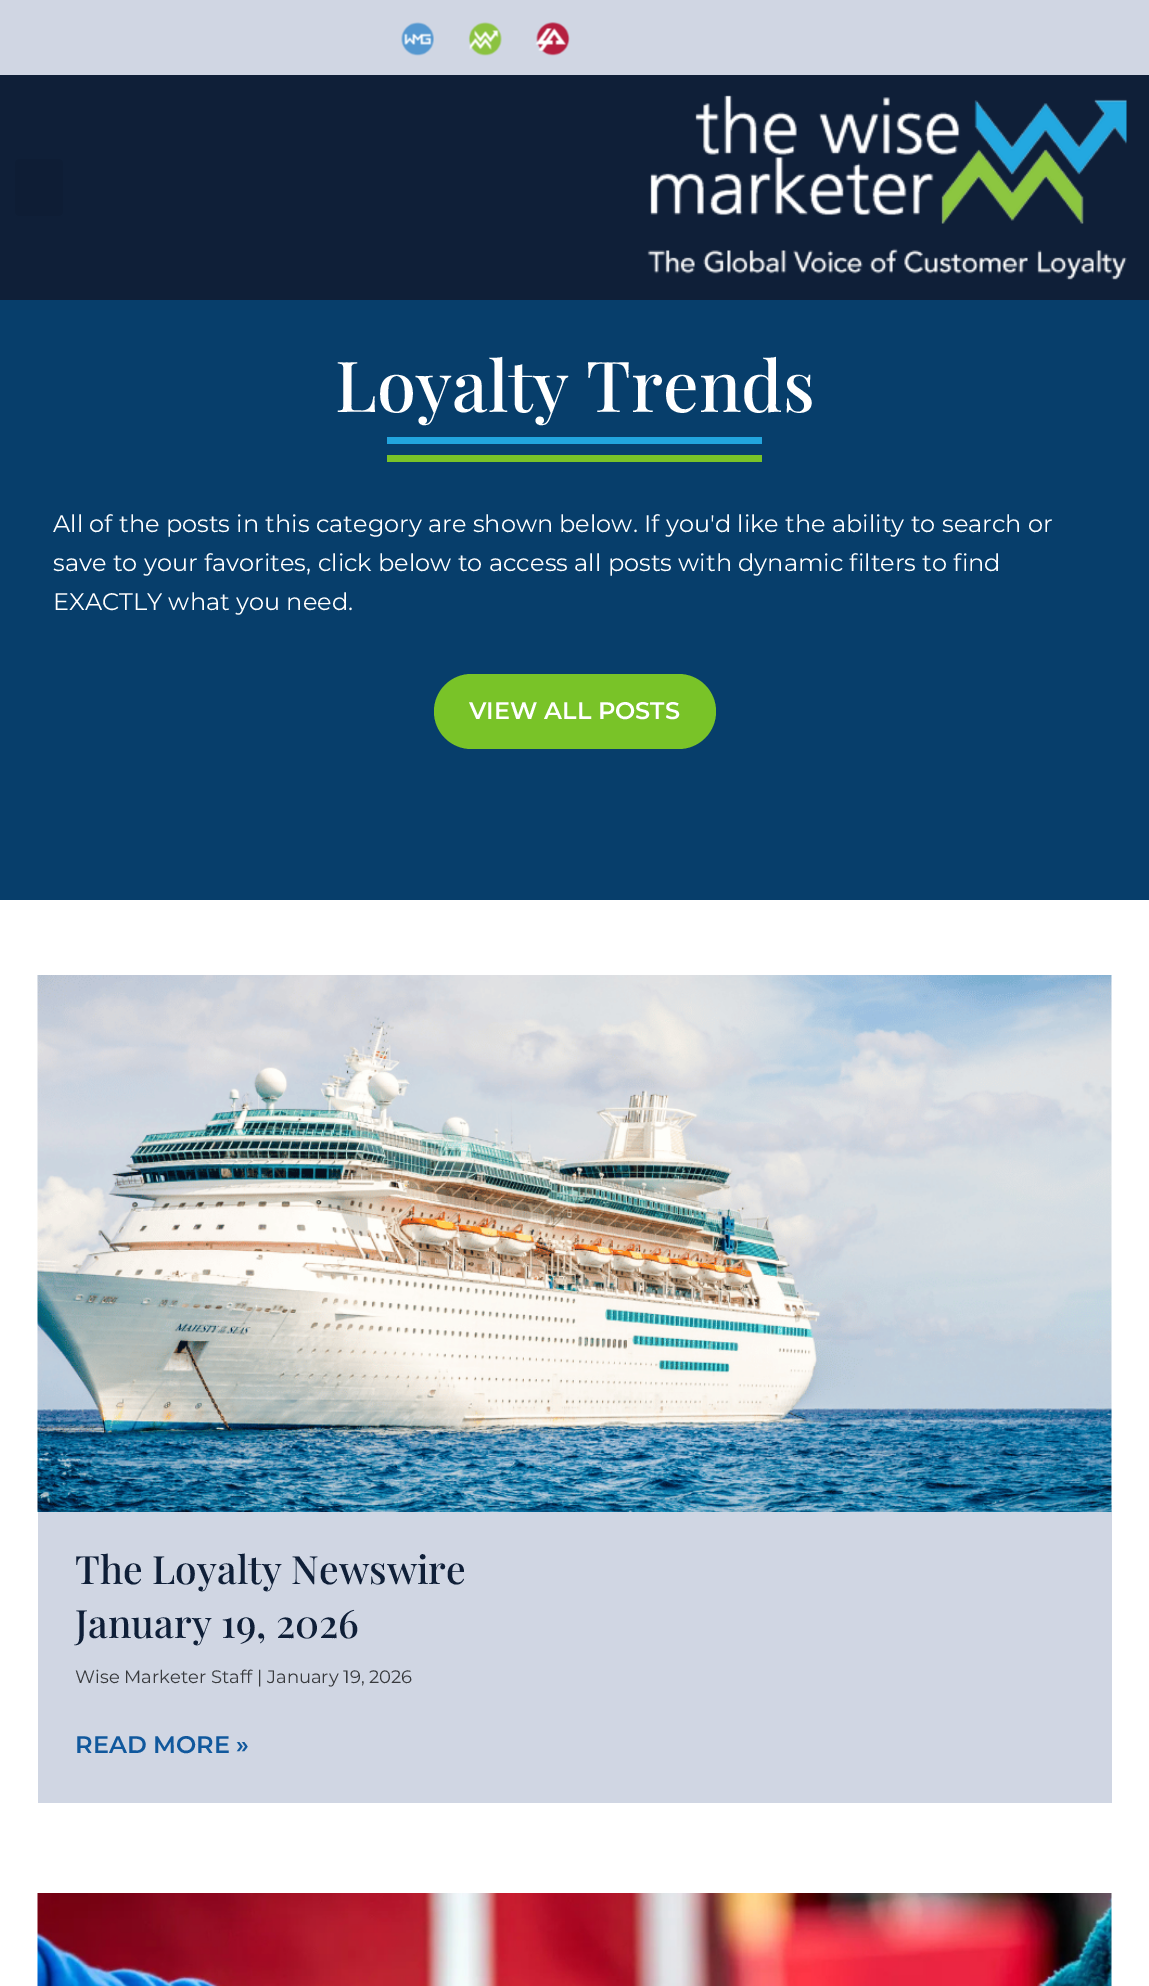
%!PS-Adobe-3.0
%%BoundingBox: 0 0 1149 1986
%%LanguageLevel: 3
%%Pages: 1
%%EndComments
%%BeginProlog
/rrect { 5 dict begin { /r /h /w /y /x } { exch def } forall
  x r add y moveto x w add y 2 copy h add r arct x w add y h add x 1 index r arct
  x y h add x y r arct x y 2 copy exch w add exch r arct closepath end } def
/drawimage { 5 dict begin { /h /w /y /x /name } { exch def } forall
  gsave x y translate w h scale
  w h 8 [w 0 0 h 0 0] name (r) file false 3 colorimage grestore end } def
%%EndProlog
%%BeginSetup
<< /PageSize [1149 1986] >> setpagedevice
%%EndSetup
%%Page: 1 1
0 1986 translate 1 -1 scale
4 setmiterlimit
1 setgray
0 0 1149 1986 rectfill
0.816 0.839 0.89 setrgbcolor
0 0 1149 75 rectfill
(images/1.raw) 401 22 33 34 drawimage
(images/2.raw) 468 22 34 34 drawimage
(images/3.raw) 535 22 35 34 drawimage
0.059 0.122 0.22 setrgbcolor
0 75 1149 225 rectfill
0.055 0.114 0.208 setrgbcolor
15 159 48 57 5 rrect fill
(images/4.raw) 647 95 480 185 drawimage
0.027 0.243 0.42 setrgbcolor
0 300 1149 600 rectfill
0.133 0.647 0.871 setrgbcolor
387 437 375 7 rectfill
0.475 0.765 0.157 setrgbcolor
387 455 375 7 rectfill
434 674 282 75 37.5 rrect fill
0.816 0.839 0.89 setrgbcolor
38 1505 1074 298 rectfill
(images/5.raw) 37 975 1075 537 drawimage
(images/6.raw) 37 1893 1075 93 drawimage
/PlayfairDisplay-Medium [70.5 0 0 -70.5 0 0] selectfont
1 setgray
335 412 moveto (Loyalty Trends) show
/Montserrat-Regular [24 0 0 -24 0 0] selectfont
53 532 moveto (All of the posts in this category are shown below. If you'd like the ability to search or) show
53 571 moveto (save to your favorites, click below to access all posts with dynamic filters to find) show
53 610 moveto (EXACTLY what you need.) show
/Montserrat-SemiBold [24 0 0 -24 0 0] selectfont
469 719 moveto (VIEW ALL POSTS) show
/PlayfairDisplay-Medium [39 0 0 -39 0 0] selectfont
0.059 0.122 0.22 setrgbcolor
75 1584 moveto (The Loyalty Newswire) show
75 1638 moveto (January 19, 2026) show
/Montserrat-Regular [18 0 0 -18 0 0] selectfont
0.22 0.227 0.239 setrgbcolor
75 1683 moveto (Wise Marketer Staff | January 19, 2026) show
/Montserrat-SemiBold [24 0 0 -24 0 0] selectfont
0.063 0.345 0.616 setrgbcolor
75 1753 moveto (READ MORE ») show
showpage
%%EOF
